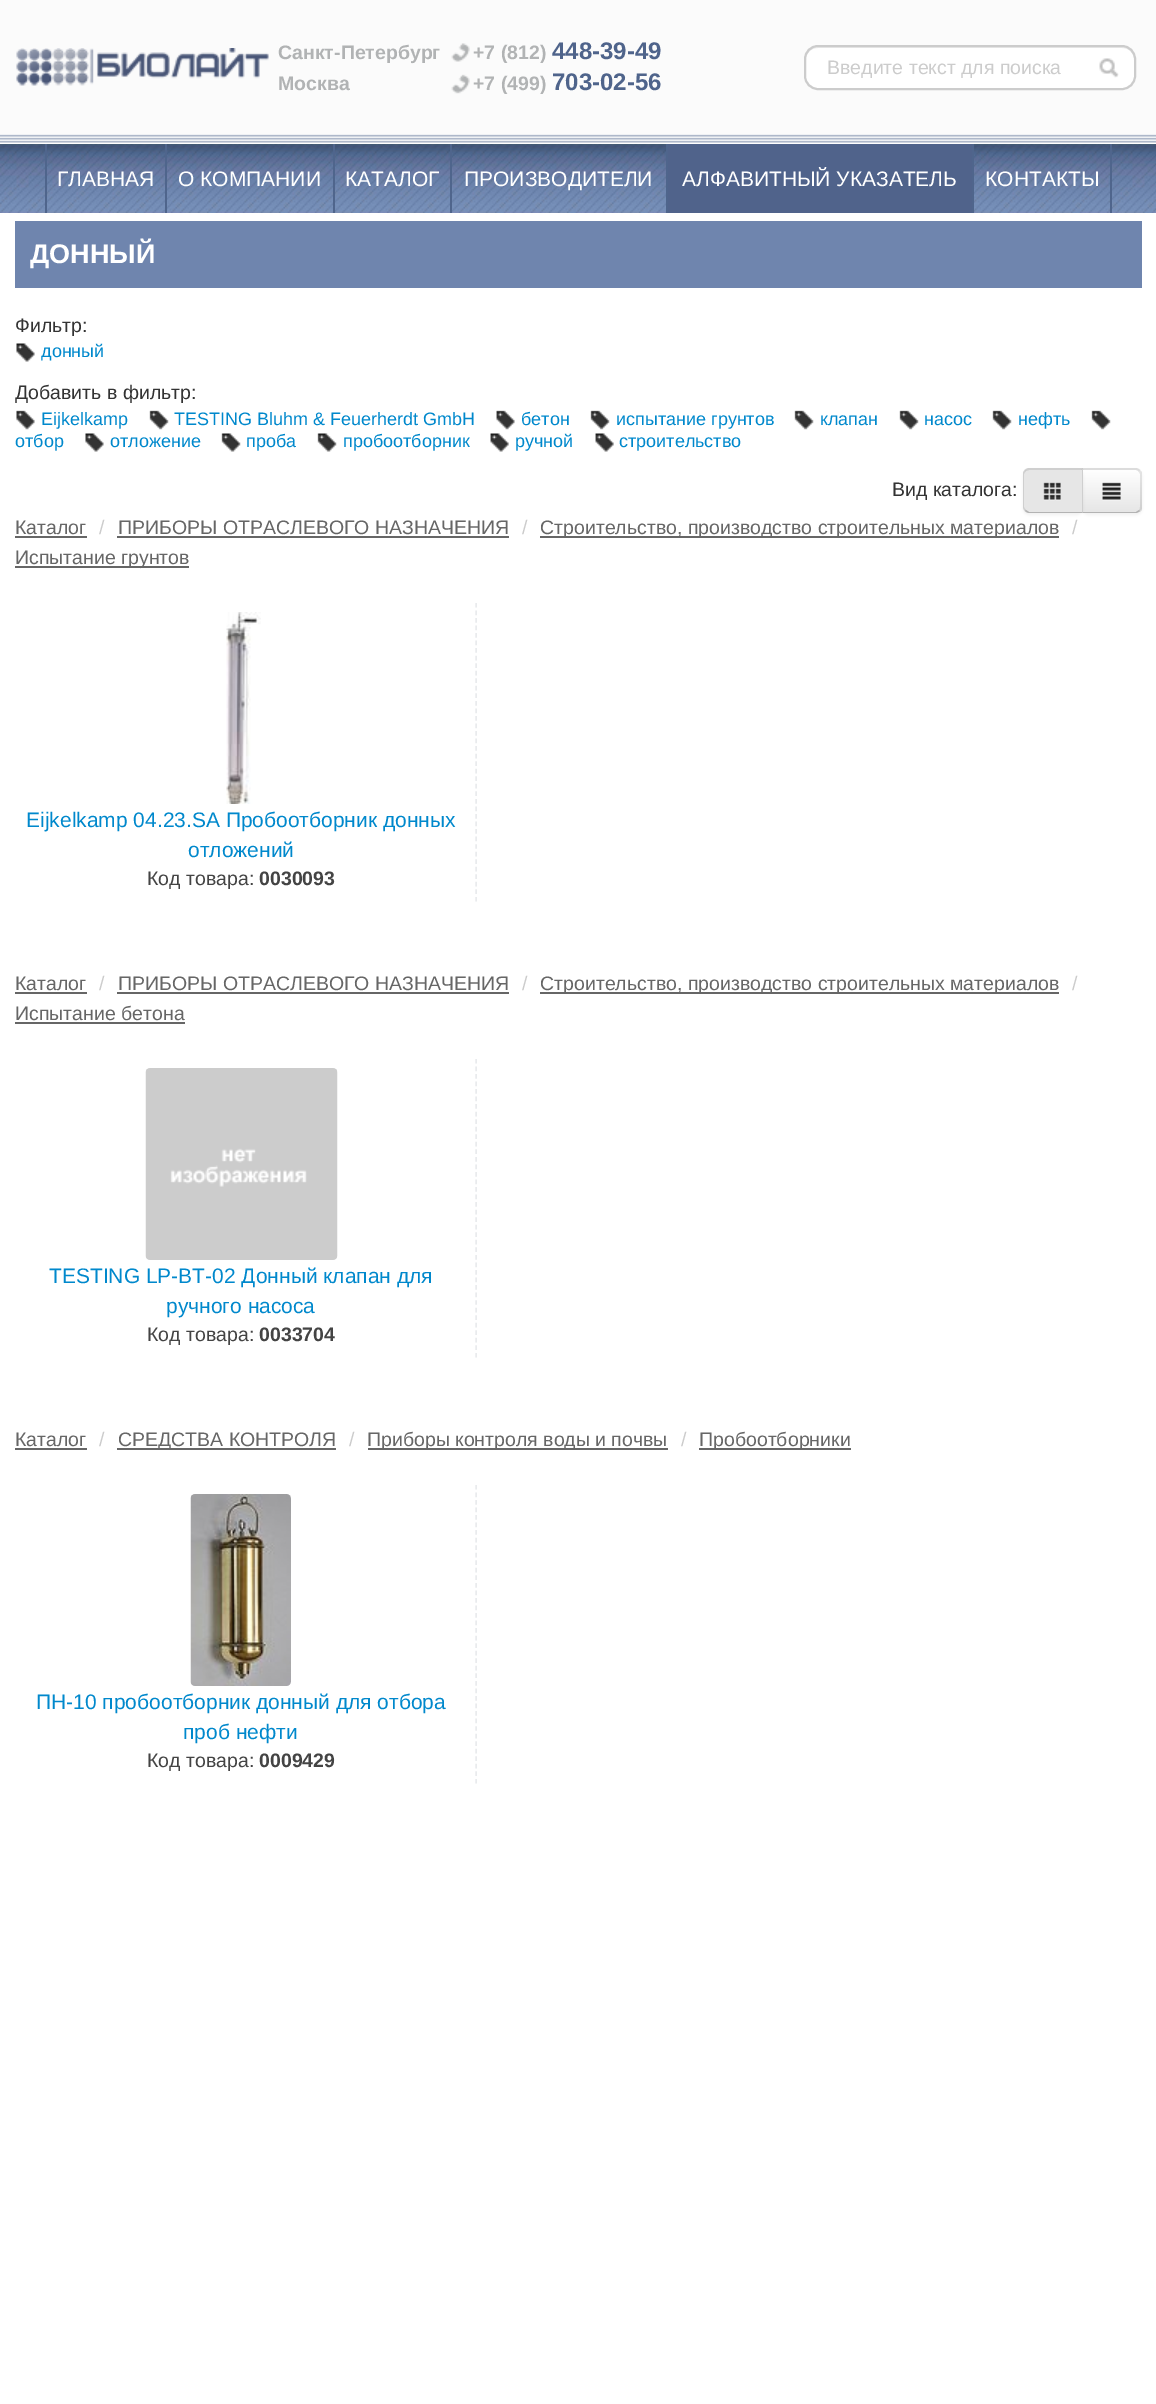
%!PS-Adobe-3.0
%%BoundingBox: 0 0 1156 2404
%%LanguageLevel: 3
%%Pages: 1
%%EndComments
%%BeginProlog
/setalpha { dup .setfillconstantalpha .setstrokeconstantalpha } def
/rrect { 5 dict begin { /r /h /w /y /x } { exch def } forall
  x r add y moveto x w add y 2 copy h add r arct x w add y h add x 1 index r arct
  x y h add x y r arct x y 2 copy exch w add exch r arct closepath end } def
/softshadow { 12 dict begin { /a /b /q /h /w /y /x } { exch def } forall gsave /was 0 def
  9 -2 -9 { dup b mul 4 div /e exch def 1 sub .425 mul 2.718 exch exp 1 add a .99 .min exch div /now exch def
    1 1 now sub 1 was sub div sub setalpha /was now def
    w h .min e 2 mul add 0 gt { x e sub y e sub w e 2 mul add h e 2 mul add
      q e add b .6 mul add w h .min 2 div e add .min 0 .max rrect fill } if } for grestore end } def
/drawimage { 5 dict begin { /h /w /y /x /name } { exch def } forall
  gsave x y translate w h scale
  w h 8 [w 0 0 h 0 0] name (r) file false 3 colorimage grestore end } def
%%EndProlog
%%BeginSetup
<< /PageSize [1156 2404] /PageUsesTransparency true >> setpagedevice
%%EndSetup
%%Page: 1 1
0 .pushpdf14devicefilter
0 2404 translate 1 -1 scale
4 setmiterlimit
1 setgray
0 0 1156 2404 rectfill
0.984 setgray
0 0 1156 134 rectfill
(images/1.raw) 16 48 253 38 drawimage
(images/2.raw) 451 43 19 19 drawimage
(images/3.raw) 451 74 19 20 drawimage
1 setgray
804 45 332 45 14 rrect fill
0.925 setgray
newpath 818 48 moveto 1122 48 lineto 1129 48 1134 53 1134 60 curveto 1134 59 lineto 1134 52 1129 47 1122 47 curveto 818 47 lineto 811 47 806 52 806 59 curveto 806 60 lineto 806 53 811 48 818 48 curveto closepath fill
0.8 setgray
2 setlinewidth
805 46 330 43 13 rrect stroke
(images/4.raw) 1099 58 20 20 drawimage
(images/5.raw) 0 134 1156 9 drawimage
(images/6.raw) 0 144 1156 69 drawimage
0.31 0.396 0.549 setrgbcolor
165 144 2 69 rectfill
45 144 2 69 rectfill
333 144 2 69 rectfill
450 144 2 69 rectfill
666 144 2 69 rectfill
0.314 0.388 0.545 setrgbcolor
668 144 304 69 rectfill
0.31 0.396 0.549 setrgbcolor
972 144 2 69 rectfill
1110 144 2 69 rectfill
0.435 0.522 0.682 setrgbcolor
15 221 1127 67 rectfill
(images/7.raw) 16 343 19 19 drawimage
(images/8.raw) 16 410 19 20 drawimage
(images/9.raw) 149 410 20 20 drawimage
(images/10.raw) 496 410 19 20 drawimage
(images/11.raw) 590 410 20 20 drawimage
(images/9.raw) 794 410 20 20 drawimage
(images/9.raw) 899 410 20 20 drawimage
(images/9.raw) 992 410 20 20 drawimage
(images/9.raw) 1091 410 20 20 drawimage
(images/7.raw) 85 433 19 19 drawimage
(images/12.raw) 221 433 20 19 drawimage
(images/12.raw) 317 433 20 19 drawimage
(images/13.raw) 490 433 19 19 drawimage
(images/13.raw) 595 433 19 19 drawimage
0 setgray
1082 470 60 45 6 1.5 0.05 softshadow
0.961 setgray
newpath 1082 468 moveto 1136 468 lineto 1139.5 468 1142 470.5 1142 474 curveto 1142 507 lineto 1142 510.5 1139.5 513 1136 513 curveto 1082 513 lineto closepath fill
gsave
newpath 1082 468 moveto 1136 468 lineto 1139.5 468 1142 470.5 1142 474 curveto 1142 507 lineto 1142 510.5 1139.5 513 1136 513 curveto 1082 513 lineto closepath clip newpath
gsave newpath 1083 470 moveto 1142 470 lineto 1142 512 lineto 1083 512 lineto closepath clip newpath
<< /ShadingType 2 /ColorSpace /DeviceRGB /Coords [1112 470 1112 512] /Extend [true true] /Function << /FunctionType 2 /Domain [0 1] /C0 [1 1 1] /C1 [0.902 0.902 0.902] /N 1 >> >> shfill grestore
grestore
0.1 setalpha
0 setgray
newpath 1082 468 moveto 1084 470 lineto 1136 470 lineto 1138 471 lineto 1140 470 lineto 1139 469 1137 468 1136 468 curveto closepath fill
newpath 1142 509 moveto 1140 511 lineto 1139 510 lineto 1140 509 1140 508 1140 507 curveto 1140 474 lineto 1140 473 1139 472 1138 471 curveto 1140 470 lineto 1142 472 lineto closepath fill
1 setalpha
0.702 setgray
newpath 1082 513 moveto 1136 513 lineto 1137 513 1139 512 1140 511 curveto 1139 510 lineto 1136 512 lineto 1083 512 lineto closepath fill
0.1 setalpha
0 setgray
newpath 1083 470 moveto 1084 470 lineto 1082 468 lineto 1082 512 lineto 1083 512 lineto closepath fill
1 setalpha
1023 470 60 45 6 1.5 0.05 softshadow
0.902 setgray
newpath 1029 468 moveto 1083 468 lineto 1083 513 lineto 1029 513 lineto 1025.5 513 1023 510.5 1023 507 curveto 1023 474 lineto 1023 470.5 1025.5 468 1029 468 curveto closepath fill
0.1 setalpha
0 setgray
newpath 1029 468 moveto 1028 468 1026 469 1025 470 curveto 1026 471 lineto 1029 470 lineto 1081 470 lineto 1083 468 lineto closepath fill
newpath 1083 468 moveto 1081 470 lineto 1082 470 lineto 1082 512 lineto 1083 513 lineto closepath fill
1 setalpha
0.702 setgray
newpath 1083 513 moveto 1082 512 lineto 1029 512 lineto 1026 510 lineto 1025 511 lineto 1026 512 1028 513 1029 513 curveto closepath fill
0.1 setalpha
0 setgray
newpath 1023 474 moveto 1023 507 lineto 1023 508 1024 510 1025 511 curveto 1026 510 lineto 1025 509 1024 508 1024 507 curveto 1024 474 lineto 1024 473 1025 472 1026 471 curveto 1025 470 lineto 1024 471 1023 472 1023 474 curveto closepath fill
1 setalpha
(images/14.raw) 1043 482 18 19 drawimage
(images/15.raw) 1102 482 19 19 drawimage
0.4 setgray
15 536 72 2 rectfill
117 536 392 2 rectfill
540 536 519 2 rectfill
15 566 174 2 rectfill
0.914 0.922 0.929 setrgbcolor
1.5 setlinewidth
[4.5 3.04] 0 setdash
newpath 476 603 moveto 476 901.5 lineto stroke
(images/16.raw) 226 612 35 192 drawimage
0.4 setgray
15 992 72 2 rectfill
117 992 392 2 rectfill
540 992 519 2 rectfill
15 1022 170 2 rectfill
0.914 0.922 0.929 setrgbcolor
newpath 476 1059 moveto 476 1357.5 lineto stroke
(images/17.raw) 145 1068 193 192 drawimage
0.4 setgray
15 1448 72 2 rectfill
117 1448 219 2 rectfill
368 1448 300 2 rectfill
699 1448 152 2 rectfill
0.914 0.922 0.929 setrgbcolor
newpath 476 1485 moveto 476 1783.5 lineto stroke
(images/18.raw) 190 1494 101 192 drawimage
/LiberationSans-Bold [19.5 0 0 -19.5 0 0] selectfont
0.694 0.702 0.706 setrgbcolor
278 59 moveto (Санкт-Петербург) show
473 59 moveto (+7 \(812\)) show
/LiberationSans-Bold [24 0 0 -24 0 0] selectfont
0.31 0.392 0.545 setrgbcolor
552 59 moveto (448-39-49) show
/LiberationSans-Bold [19.5 0 0 -19.5 0 0] selectfont
0.694 0.702 0.706 setrgbcolor
278 90 moveto (Москва) show
473 90 moveto (+7 \(499\)) show
/LiberationSans-Bold [24 0 0 -24 0 0] selectfont
0.31 0.392 0.545 setrgbcolor
552 90 moveto (703-02-56) show
/LiberationSans-Regular [19.5 0 0 -19.5 0 0] selectfont
0.8 setgray
827 74 moveto (Введите текст для поиска) show
/LiberationSans-Regular [21 0 0 -21 0 0] selectfont
1 setgray
57 186 moveto (ГЛАВНАЯ) show
178 186 moveto (О КОМПАНИИ) show
345 186 moveto (КАТАЛОГ) show
464 186 moveto (ПРОИЗВОДИТЕЛИ) show
682 186 moveto (АЛФАВИТНЫЙ УКАЗАТЕЛЬ) show
985 186 moveto (КОНТАКТЫ) show
/LiberationSans-Bold [27 0 0 -27 0 0] selectfont
30 263 moveto (ДОННЫЙ) show
/LiberationSans-Regular [19.5 0 0 -19.5 0 0] selectfont
0.2 setgray
15 332 moveto (Фильтр:) show
/LiberationSans-Regular [18 0 0 -18 0 0] selectfont
0 0.533 0.8 setrgbcolor
41 357 moveto (донный) show
/LiberationSans-Regular [19.5 0 0 -19.5 0 0] selectfont
0.2 setgray
15 399 moveto (Добавить в фильтр:) show
/LiberationSans-Regular [18 0 0 -18 0 0] selectfont
0 0.533 0.8 setrgbcolor
41 425 moveto (Eijkelkamp) show
174 425 moveto (TESTING Bluhm & Feuerherdt GmbH) show
521 425 moveto (бетон) show
616 425 moveto (испытание грунтов) show
820 425 moveto (клапан) show
924 425 moveto (насос) show
1018 425 moveto (нефть) show
15 447 moveto (отбор) show
110 447 moveto (отложение) show
246 447 moveto (проба) show
343 447 moveto (пробоотборник) show
515 447 moveto (ручной) show
619 447 moveto (строительство) show
/LiberationSans-Regular [19.5 0 0 -19.5 0 0] selectfont
0.2 setgray
892 496 moveto (Вид каталога:) show
0.4 setgray
15 534 moveto (Каталог) show
0.8 setgray
99 534 moveto (/) show
0.4 setgray
118 534 moveto (ПРИБОРЫ ОТРАСЛЕВОГО НАЗНАЧЕНИЯ) show
0.8 setgray
522 534 moveto (/) show
0.4 setgray
540 534 moveto (Строительство, производство строительных материалов) show
0.8 setgray
1072 534 moveto (/) show
0.4 setgray
15 564 moveto (Испытание грунтов) show
/LiberationSans-Regular [21 0 0 -21 0 0] selectfont
0 0.533 0.8 setrgbcolor
26 827 moveto (Eijkelkamp 04.23.SA Пробоотборник донных) show
188 857 moveto (отложений) show
/LiberationSans-Regular [19.5 0 0 -19.5 0 0] selectfont
0.267 setgray
147 885 moveto (Код товара:) show
/LiberationSans-Bold [19.5 0 0 -19.5 0 0] selectfont
259 885 moveto (0030093) show
/LiberationSans-Regular [19.5 0 0 -19.5 0 0] selectfont
0.4 setgray
15 990 moveto (Каталог) show
0.8 setgray
99 990 moveto (/) show
0.4 setgray
118 990 moveto (ПРИБОРЫ ОТРАСЛЕВОГО НАЗНАЧЕНИЯ) show
0.8 setgray
522 990 moveto (/) show
0.4 setgray
540 990 moveto (Строительство, производство строительных материалов) show
0.8 setgray
1072 990 moveto (/) show
0.4 setgray
15 1020 moveto (Испытание бетона) show
/LiberationSans-Regular [21 0 0 -21 0 0] selectfont
0 0.533 0.8 setrgbcolor
49 1283 moveto (TESTING LP-BT-02 Донный клапан для) show
166 1313 moveto (ручного насоса) show
/LiberationSans-Regular [19.5 0 0 -19.5 0 0] selectfont
0.267 setgray
147 1341 moveto (Код товара:) show
/LiberationSans-Bold [19.5 0 0 -19.5 0 0] selectfont
259 1341 moveto (0033704) show
/LiberationSans-Regular [19.5 0 0 -19.5 0 0] selectfont
0.4 setgray
15 1446 moveto (Каталог) show
0.8 setgray
99 1446 moveto (/) show
0.4 setgray
118 1446 moveto (СРЕДСТВА КОНТРОЛЯ) show
0.8 setgray
349 1446 moveto (/) show
0.4 setgray
367 1446 moveto (Приборы контроля воды и почвы) show
0.8 setgray
681 1446 moveto (/) show
0.4 setgray
699 1446 moveto (Пробоотборники) show
/LiberationSans-Regular [21 0 0 -21 0 0] selectfont
0 0.533 0.8 setrgbcolor
36 1709 moveto (ПН-10 пробоотборник донный для отбора) show
183 1739 moveto (проб нефти) show
/LiberationSans-Regular [19.5 0 0 -19.5 0 0] selectfont
0.267 setgray
147 1767 moveto (Код товара:) show
/LiberationSans-Bold [19.5 0 0 -19.5 0 0] selectfont
259 1767 moveto (0009429) show
.poppdf14devicefilter showpage
%%EOF
